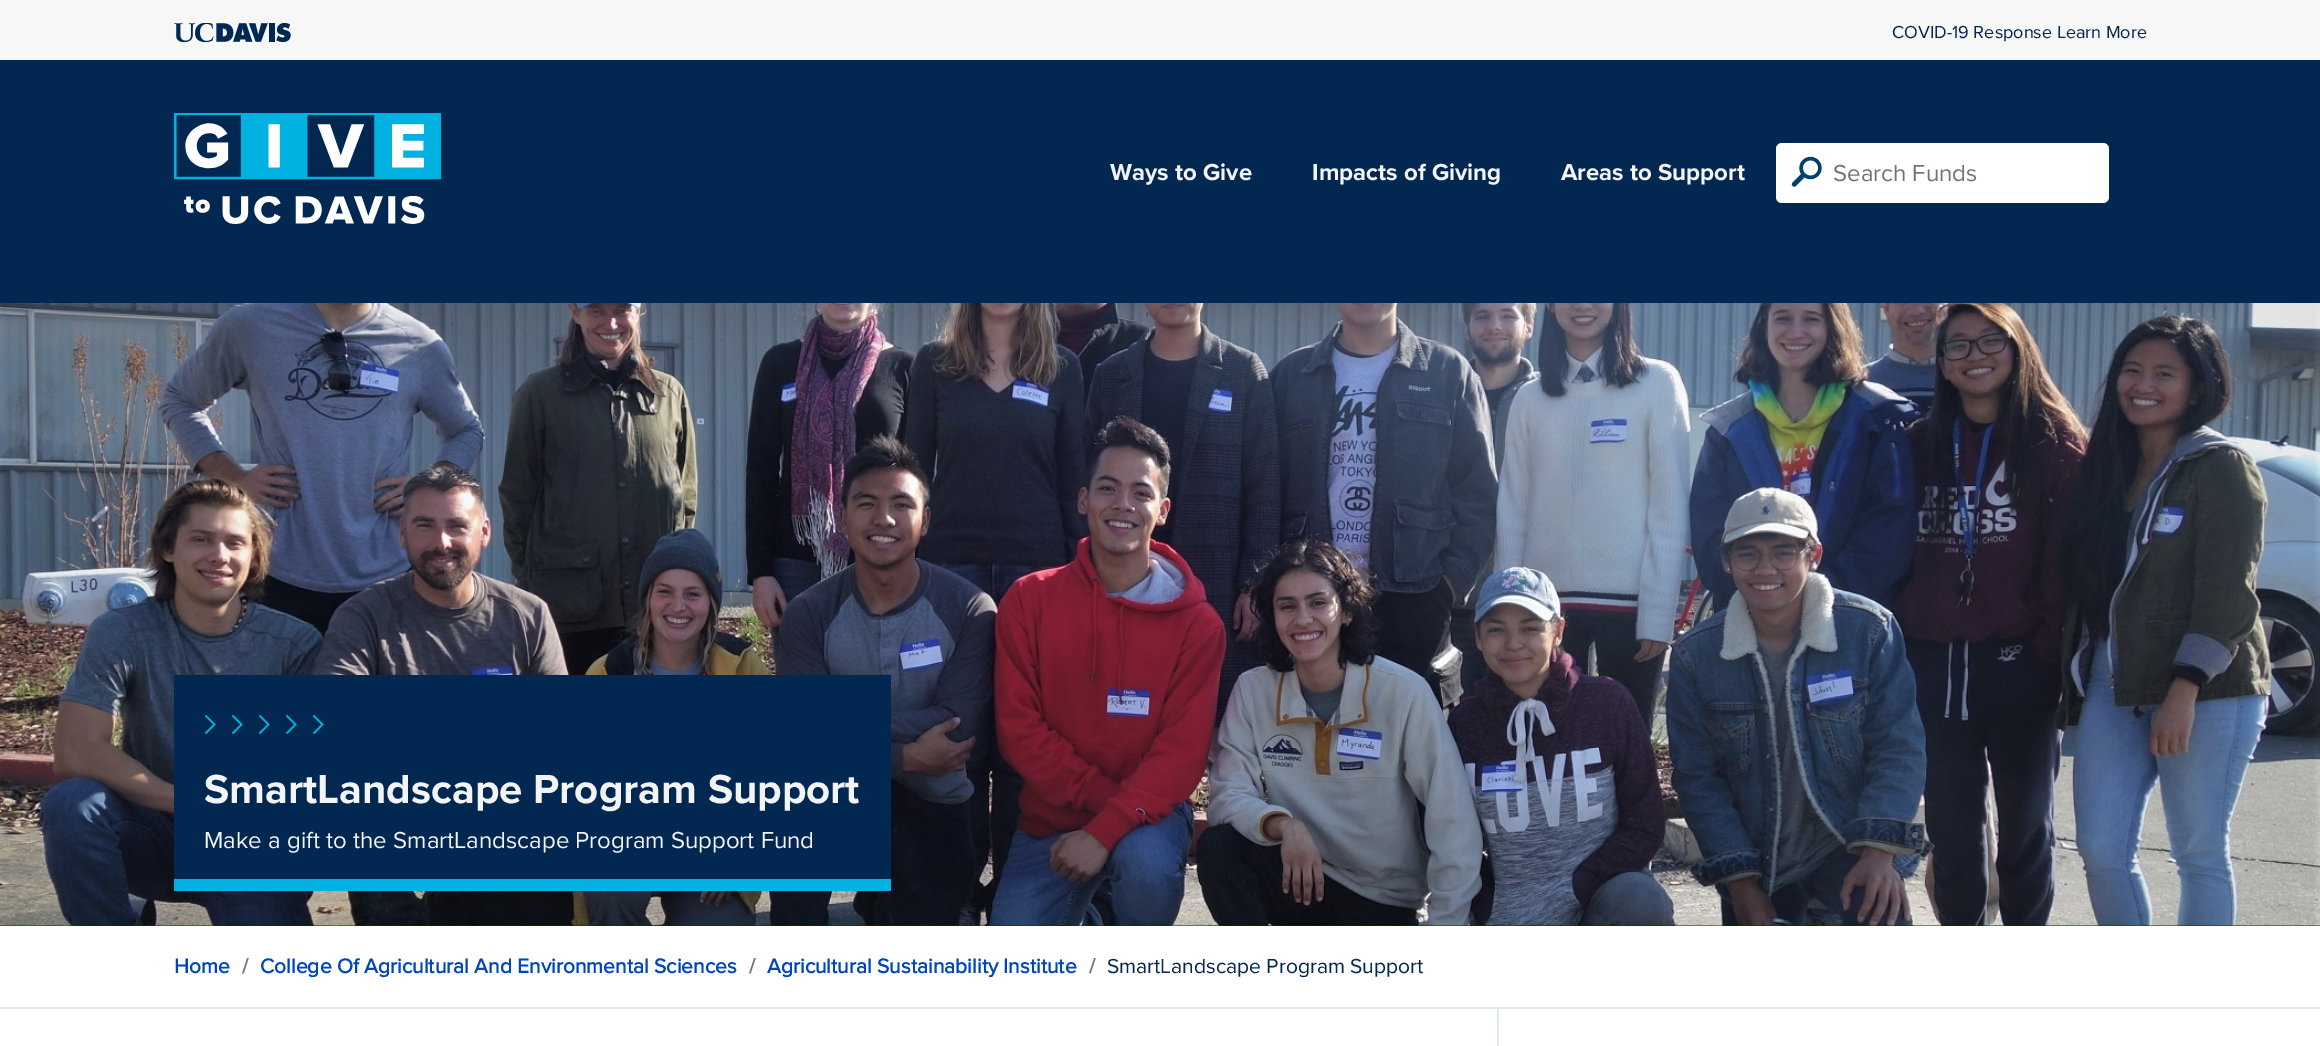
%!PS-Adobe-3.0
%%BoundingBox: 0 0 2320 1046
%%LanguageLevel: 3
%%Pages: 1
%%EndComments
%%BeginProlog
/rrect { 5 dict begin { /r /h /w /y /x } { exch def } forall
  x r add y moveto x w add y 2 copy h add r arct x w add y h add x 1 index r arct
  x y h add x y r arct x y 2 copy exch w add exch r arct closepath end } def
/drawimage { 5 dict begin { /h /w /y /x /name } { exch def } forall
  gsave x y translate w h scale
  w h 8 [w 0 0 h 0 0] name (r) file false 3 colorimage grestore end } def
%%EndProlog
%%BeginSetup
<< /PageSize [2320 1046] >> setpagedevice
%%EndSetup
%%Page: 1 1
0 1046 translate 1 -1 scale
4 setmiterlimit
1 setgray
0 0 2320 1046 rectfill
0.969 setgray
0 0 2320 60 rectfill
(images/1.raw) 174 23 117 20 drawimage
0.008 0.157 0.318 setrgbcolor
0 60 2320 243 rectfill
(images/2.raw) 174 113 267 111 drawimage
1 setgray
1776 143 333 60 6 rrect fill
(images/3.raw) 1791 156 31 31 drawimage
0 0.157 0.333 setrgbcolor
0 925 2320 1 rectfill
(images/4.raw) 0 303 2320 623 drawimage
0.008 0.157 0.318 setrgbcolor
174 675 717 204 rectfill
0 0.698 0.89 setrgbcolor
174 879 717 12 rectfill
1.5 setlinewidth
newpath 232.5 733.5 moveto 241.5 724.5 lineto 232.5 715.5 lineto 205.5 733.5 moveto 214.5 724.5 lineto 205.5 715.5 lineto stroke
newpath 259.5 733.5 moveto 268.5 724.5 lineto 259.5 715.5 lineto stroke
newpath 313.5 733.5 moveto 322.5 724.5 lineto 313.5 715.5 lineto 286.5 733.5 moveto 295.5 724.5 lineto 286.5 715.5 lineto stroke
0.882 0.914 0.941 setrgbcolor
0 1007 2320 2 rectfill
1497 1008 2 38 rectfill
/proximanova-Regular [18 0 0 -18 0 0] selectfont
0.008 0.157 0.318 setrgbcolor
1892 38 moveto (COVID-19 Response Learn More) show
/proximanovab-Bold [24 0 0 -24 0 0] selectfont
0.949 0.957 0.965 setrgbcolor
1110 180 moveto (Ways to Give) show
1312 180 moveto (Impacts of Giving) show
1561 180 moveto (Areas to Support) show
/proximanova-Regular [24 0 0 -24 0 0] selectfont
0.424 0.459 0.49 setrgbcolor
1833 181 moveto (Search Funds) show
/proximanovab-Bold [42 0 0 -42 0 0] selectfont
0.949 0.957 0.965 setrgbcolor
204 803 moveto (SmartLandscape Program Support) show
/proximanova-Regular [24 0 0 -24 0 0] selectfont
204 848 moveto (Make a gift to the SmartLandscape Program Support Fund) show
/proximanova-Bold [21 0 0 -21 0 0] selectfont
0 0.278 0.729 setrgbcolor
174 973 moveto (Home) show
0.424 0.459 0.49 setrgbcolor
242 973 moveto (/) show
0 0.278 0.729 setrgbcolor
260 973 moveto (College Of Agricultural And Environmental Sciences) show
0.424 0.459 0.49 setrgbcolor
749 973 moveto (/) show
0 0.278 0.729 setrgbcolor
767 973 moveto (Agricultural Sustainability Institute) show
0.424 0.459 0.49 setrgbcolor
1089 973 moveto (/) show
/proximanova-Regular [21 0 0 -21 0 0] selectfont
0.008 0.157 0.318 setrgbcolor
1107 973 moveto (SmartLandscape Program Support) show
showpage
%%EOF
